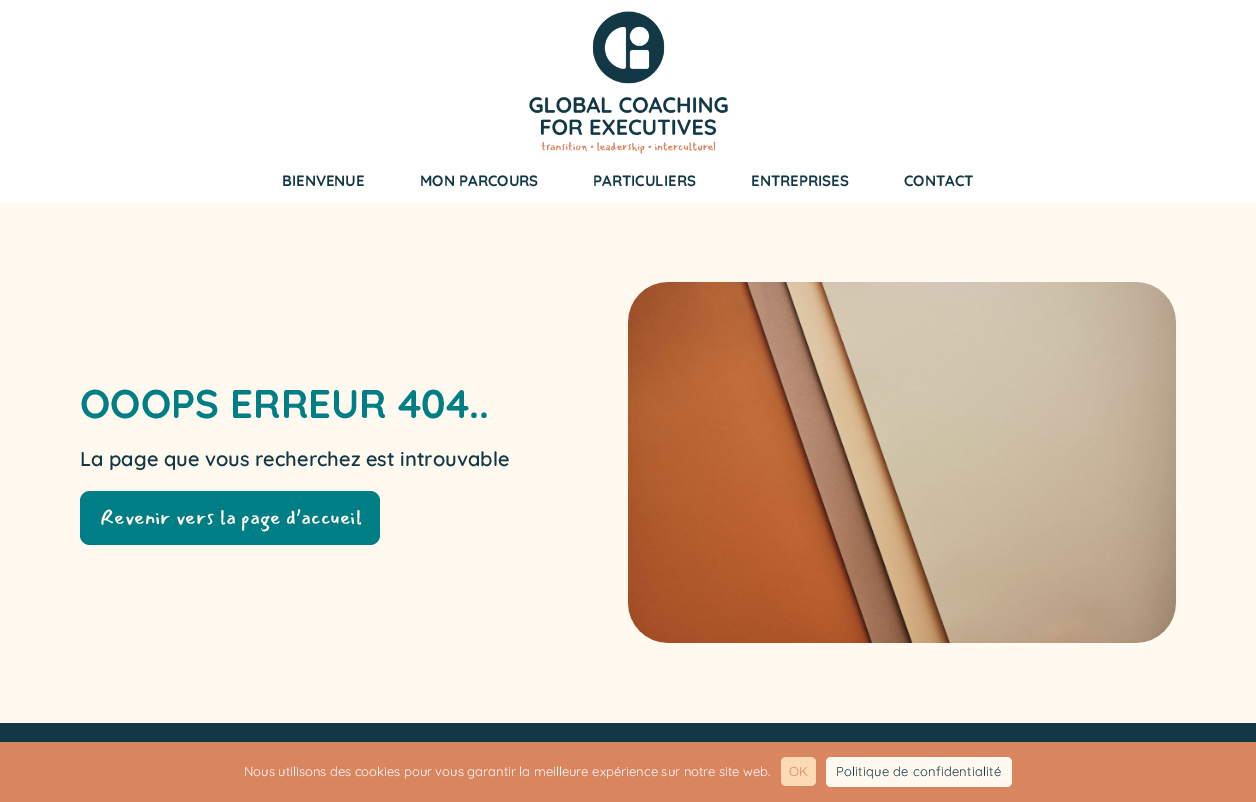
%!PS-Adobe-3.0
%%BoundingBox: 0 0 1256 802
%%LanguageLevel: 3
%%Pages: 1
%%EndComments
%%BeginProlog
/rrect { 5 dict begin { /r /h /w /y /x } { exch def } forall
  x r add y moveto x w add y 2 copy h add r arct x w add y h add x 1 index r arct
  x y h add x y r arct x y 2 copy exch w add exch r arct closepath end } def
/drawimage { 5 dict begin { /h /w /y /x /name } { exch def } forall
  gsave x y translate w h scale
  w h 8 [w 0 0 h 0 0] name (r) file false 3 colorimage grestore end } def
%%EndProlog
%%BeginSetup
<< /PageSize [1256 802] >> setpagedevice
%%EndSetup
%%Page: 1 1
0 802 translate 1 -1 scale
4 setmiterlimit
1 setgray
0 0 1256 802 rectfill
(images/1.raw) 529 11 199 143 drawimage
1 0.976 0.937 setrgbcolor
0 202 1256 521 rectfill
0 0.494 0.522 setrgbcolor
80 491 300 54 10 rrect fill
(images/2.raw) 628 282 548 361 drawimage
0.067 0.22 0.267 setrgbcolor
0 723 1256 19 rectfill
0.851 0.522 0.376 setrgbcolor
0 742 1256 60 rectfill
0.988 0.855 0.71 setrgbcolor
781 757 35 29 5 rrect fill
1 0.976 0.937 setrgbcolor
826 757 186 30 5 rrect fill
/Quicksand-Bold [15 0 0 -15 0 0] selectfont
0.067 0.22 0.267 setrgbcolor
282 186 moveto (BIENVENUE) show
420 186 moveto (MON PARCOURS) show
593 186 moveto (PARTICULIERS) show
751 186 moveto (ENTREPRISES) show
904 186 moveto (CONTACT) show
/Quicksand-Bold [40 0 0 -40 0 0] selectfont
0 0.494 0.522 setrgbcolor
80 418 moveto (OOOPS ERREUR 404..) show
/Quicksand-SemiBold [20 0 0 -20 0 0] selectfont
0.067 0.22 0.267 setrgbcolor
80 466 moveto (La page que vous recherchez est introuvable) show
/Mansalva-Regular [20 0 0 -20 0 0] selectfont
1 0.976 0.937 setrgbcolor
100 524 moveto 0.5 0 32 (Revenir vers la page d’accueil) widthshow
/Quicksand-Regular [13 0 0 -13 0 0] selectfont
1 setgray
244 776 moveto (Nous utilisons des cookies pour vous garantir la meilleure expérience sur notre site web.) show
0.851 0.522 0.376 setrgbcolor
789 776 moveto 0.25 0 (OK) ashow
0.067 0.22 0.267 setrgbcolor
836 776 moveto 0.25 0 (Politique de confidentialité) ashow
showpage
%%EOF
